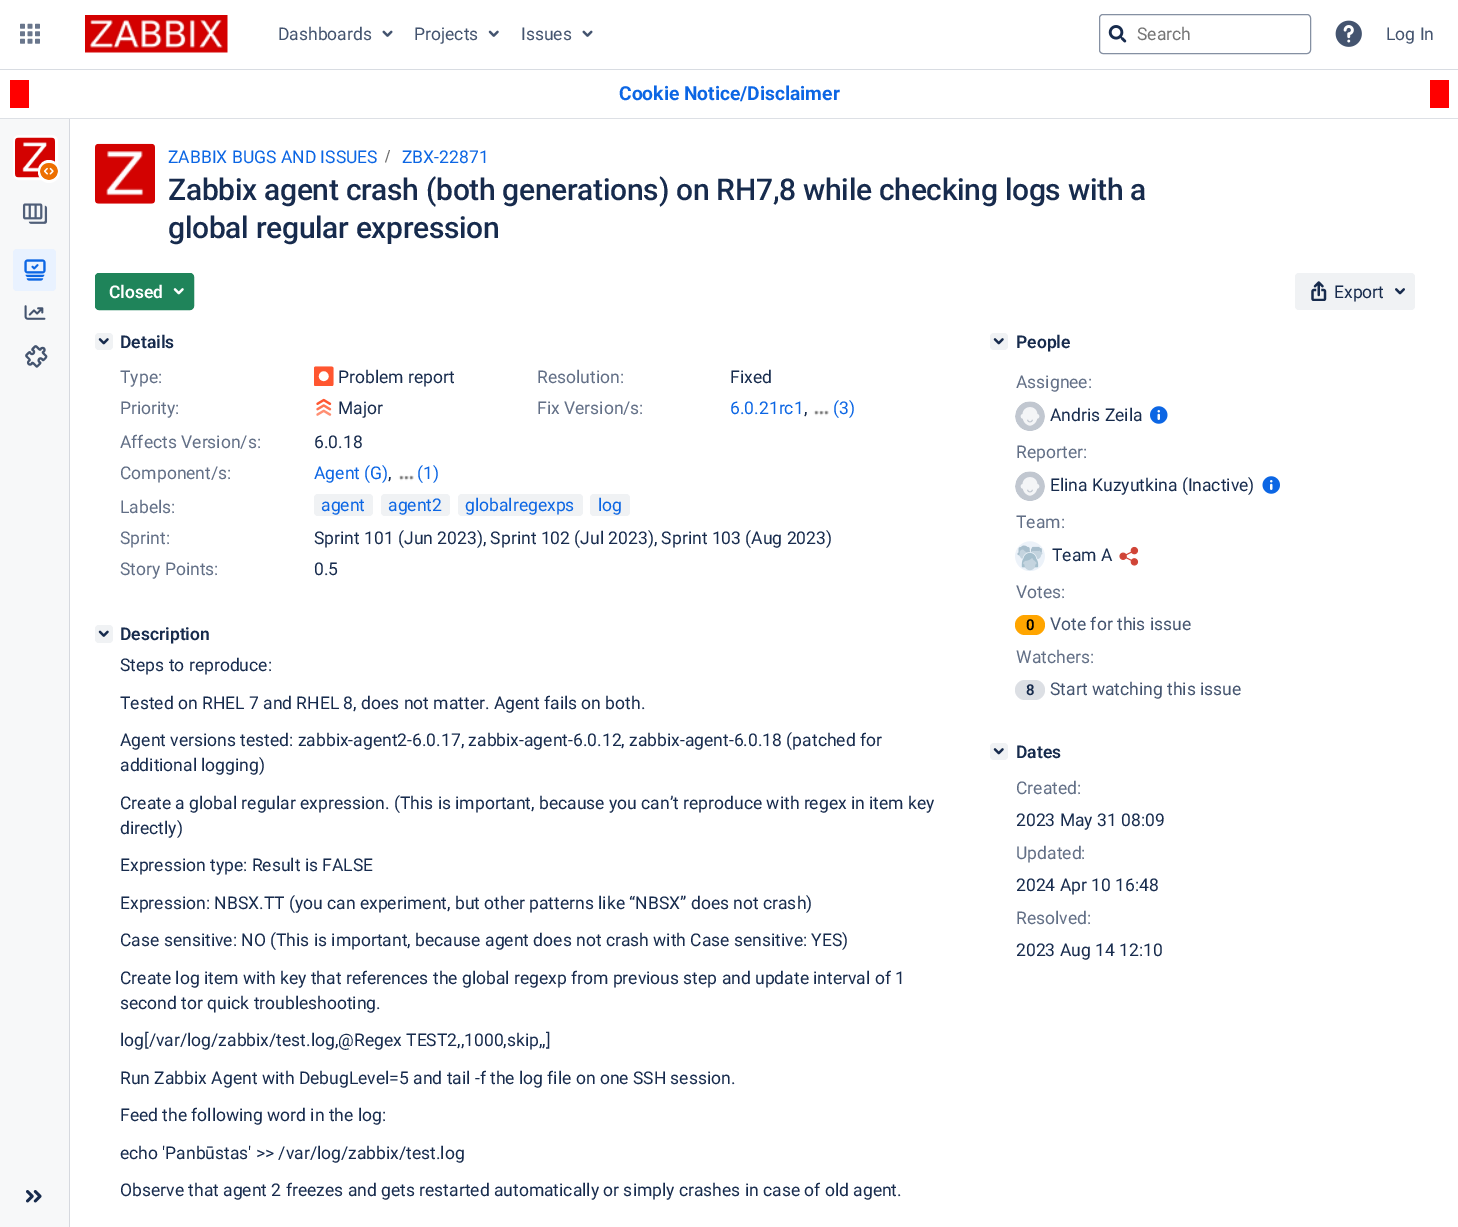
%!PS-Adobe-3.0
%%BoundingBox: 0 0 1458 1227
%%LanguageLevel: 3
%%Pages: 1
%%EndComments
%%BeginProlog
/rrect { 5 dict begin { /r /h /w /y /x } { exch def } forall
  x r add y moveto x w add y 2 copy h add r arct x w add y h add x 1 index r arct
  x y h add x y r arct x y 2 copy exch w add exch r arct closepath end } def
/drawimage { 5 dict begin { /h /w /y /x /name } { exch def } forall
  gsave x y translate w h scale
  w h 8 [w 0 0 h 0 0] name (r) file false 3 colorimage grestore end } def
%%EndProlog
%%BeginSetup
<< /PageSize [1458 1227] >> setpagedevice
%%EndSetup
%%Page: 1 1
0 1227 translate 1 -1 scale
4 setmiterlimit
1 setgray
0 0 1458 1227 rectfill
0.847 0.863 0.886 setrgbcolor
0 69 1458 1 rectfill
(images/1.raw) 20 23 20 21 drawimage
(images/2.raw) 85 15 143 38 drawimage
(images/3.raw) 382 30 11 7 drawimage
(images/4.raw) 488 30 11 7 drawimage
(images/3.raw) 582 30 11 7 drawimage
0.522 0.565 0.635 setrgbcolor
1099.5 14.5 211 39 3.5 rrect stroke
(images/5.raw) 1108 25 19 18 drawimage
(images/6.raw) 1335 20 27 27 drawimage
0.867 0.878 0.898 setrgbcolor
0 118 1458 1 rectfill
1 0 0 setrgbcolor
1430 80 19 28 rectfill
10 80 19 28 rectfill
0.969 0.973 0.976 setrgbcolor
0 119 69 1108 rectfill
0.839 0.851 0.875 setrgbcolor
69 119 1 1108 rectfill
1 setgray
3 setlinewidth
14.5 136.5 42 42 4.5 rrect stroke
(images/7.raw) 15 137 40 41 drawimage
38 160 22 23 11 rrect fill
(images/8.raw) 40 163 18 17 drawimage
(images/9.raw) 22 203 26 21 drawimage
0.914 0.949 1 setrgbcolor
13 249 43 42 4 rrect fill
(images/10.raw) 24 259 22 22 drawimage
(images/11.raw) 24 305 22 15 drawimage
(images/12.raw) 25 345 23 23 drawimage
(images/13.raw) 26 1190 16 13 drawimage
(images/14.raw) 95 143 60 61 drawimage
0.439 setgray
newpath 386 162.5 moveto 390 150 lineto 389 150 lineto 385 162.5 lineto closepath fill
0.122 0.518 0.353 setrgbcolor
95.5 273.5 98 36 3.5 rrect gsave fill grestore
1 setlinewidth
stroke
(images/15.raw) 173 288 11 7 drawimage
0.941 0.949 0.957 setrgbcolor
1295 273 120 37 4 rrect fill
(images/16.raw) 1311 281 16 20 drawimage
(images/17.raw) 1395 288 10 7 drawimage
95 333 18 17 4 rrect fill
(images/18.raw) 98 338 11 7 drawimage
(images/19.raw) 314 366 20 20 drawimage
(images/20.raw) 316 398 16 18 drawimage
(images/21.raw) 813 410 16 6 drawimage
(images/21.raw) 398 475 16 6 drawimage
314 494 59 22 4 rrect fill
381 494 69 22 4 rrect fill
458 494 125 22 4 rrect fill
590 494 40 22 4 rrect fill
95 625 18 18 4 rrect fill
(images/22.raw) 98 630 11 7 drawimage
990 333 18 17 4 rrect fill
(images/18.raw) 993 338 11 7 drawimage
(images/23.raw) 1015 401 30 30 drawimage
(images/24.raw) 1150 406 18 18 drawimage
(images/23.raw) 1015 471 30 30 drawimage
(images/25.raw) 1262 476 18 18 drawimage
(images/26.raw) 1015 541 30 30 drawimage
(images/27.raw) 1119 546 20 20 drawimage
1 0.647 0 setrgbcolor
1015 615 30 20 10 rrect fill
0.863 0.875 0.894 setrgbcolor
1015 680 30 20 10 rrect fill
0.941 0.949 0.957 setrgbcolor
990 743 18 17 4 rrect fill
(images/18.raw) 993 748 11 7 drawimage
/Roboto-Regular [17.5 0 0 -17.5 0 0] selectfont
0.267 0.329 0.435 setrgbcolor
278 40 moveto (Dashboards) show
414 40 moveto (Projects) show
521 40 moveto (Issues) show
0.459 setgray
1137 40 moveto (Search) show
0.267 0.329 0.435 setrgbcolor
1386 40 moveto (Log In) show
/Roboto-Bold [19.25 0 0 -19.25 0 0] selectfont
0.047 0.4 0.894 setrgbcolor
619 100 moveto (Cookie Notice/Disclaimer) show
/Roboto-Regular [17.5 0 0 -17.5 0 0] selectfont
168 163 moveto (ZABBIX BUGS AND ISSUES) show
402 163 moveto (ZBX-22871) show
/Roboto-Medium [30 0 0 -30 0 0] selectfont
0.09 0.169 0.302 setrgbcolor
168 200 moveto -0.3 0 (Zabbix agent crash \(both generations\) on RH7,8 while checking logs with a) ashow
168 238 moveto -0.3 0 (global regular expression) ashow
/Roboto-SemiBold [17.5 0 0 -17.5 0 0] selectfont
1 setgray
109 298 moveto (Closed) show
/Roboto-Regular [17.5 0 0 -17.5 0 0] selectfont
0.09 0.169 0.302 setrgbcolor
1334 298 moveto (Export) show
/Roboto-SemiBold [17.5 0 0 -17.5 0 0] selectfont
120 348 moveto (Details) show
/Roboto-Regular [17.5 0 0 -17.5 0 0] selectfont
0.384 0.435 0.525 setrgbcolor
120 383 moveto (Type:) show
0.09 0.169 0.302 setrgbcolor
338 383 moveto (Problem report) show
0.384 0.435 0.525 setrgbcolor
537 383 moveto (Resolution:) show
0.09 0.169 0.302 setrgbcolor
730 383 moveto (Fixed) show
0.384 0.435 0.525 setrgbcolor
120 414 moveto (Priority:) show
0.09 0.169 0.302 setrgbcolor
338 414 moveto (Major) show
0.384 0.435 0.525 setrgbcolor
537 414 moveto (Fix Version/s:) show
0.047 0.4 0.894 setrgbcolor
730 414 moveto (6.0.21rc1) show
0.09 0.169 0.302 setrgbcolor
804 414 moveto (,) show
0.047 0.4 0.894 setrgbcolor
833 414 moveto (\(3\)) show
0.384 0.435 0.525 setrgbcolor
120 448 moveto (Affects Version/s:) show
0.09 0.169 0.302 setrgbcolor
314 448 moveto (6.0.18) show
0.384 0.435 0.525 setrgbcolor
120 479 moveto (Component/s:) show
0.047 0.4 0.894 setrgbcolor
314 479 moveto (Agent \(G\)) show
0.09 0.169 0.302 setrgbcolor
388 479 moveto (,) show
0.047 0.4 0.894 setrgbcolor
417 479 moveto (\(1\)) show
0.384 0.435 0.525 setrgbcolor
120 513 moveto (Labels:) show
0.047 0.4 0.894 setrgbcolor
321 511 moveto (agent) show
388 511 moveto (agent2) show
465 511 moveto (globalregexps) show
598 511 moveto (log) show
0.384 0.435 0.525 setrgbcolor
120 544 moveto (Sprint:) show
0.09 0.169 0.302 setrgbcolor
314 544 moveto (Sprint 101 \(Jun 2023\), Sprint 102 \(Jul 2023\), Sprint 103 \(Aug 2023\)) show
0.384 0.435 0.525 setrgbcolor
120 575 moveto (Story Points:) show
0.09 0.169 0.302 setrgbcolor
314 575 moveto (0.5) show
/Roboto-SemiBold [17.5 0 0 -17.5 0 0] selectfont
120 640 moveto (Description) show
/Roboto-Regular [17.5 0 0 -17.5 0 0] selectfont
120 671 moveto (Steps to reproduce:) show
120 709 moveto (Tested on RHEL 7 and RHEL 8, does not matter. Agent fails on both.) show
120 746 moveto (Agent versions tested: zabbix-agent2-6.0.17, zabbix-agent-6.0.12, zabbix-agent-6.0.18 \(patched for) show
120 771 moveto (additional logging\)) show
120 809 moveto (Create a global regular expression. \(This is important, because you can’t reproduce with regex in item key) show
120 834 moveto (directly\)) show
120 871 moveto (Expression type: Result is FALSE) show
120 909 moveto (Expression: NBSX.TT \(you can experiment, but other patterns like “NBSX” does not crash\)) show
120 946 moveto (Case sensitive: NO \(This is important, because agent does not crash with Case sensitive: YES\)) show
120 984 moveto (Create log item with key that references the global regexp from previous step and update interval of 1) show
120 1009 moveto (second tor quick troubleshooting.) show
120 1046 moveto (log[/var/log/zabbix/test.log,@Regex TEST2,,1000,skip,,]) show
120 1084 moveto (Run Zabbix Agent with DebugLevel=5 and tail -f the log file on one SSH session.) show
120 1121 moveto (Feed the following word in the log:) show
120 1159 moveto (echo 'Panbūstas' >> /var/log/zabbix/test.log) show
120 1196 moveto (Observe that agent 2 freezes and gets restarted automatically or simply crashes in case of old agent.) show
/Roboto-SemiBold [17.5 0 0 -17.5 0 0] selectfont
1016 348 moveto (People) show
/Roboto-Regular [17.5 0 0 -17.5 0 0] selectfont
0.384 0.435 0.525 setrgbcolor
1016 388 moveto (Assignee:) show
0.09 0.169 0.302 setrgbcolor
1050 421 moveto (Andris Zeila) show
0.384 0.435 0.525 setrgbcolor
1016 458 moveto (Reporter:) show
0.09 0.169 0.302 setrgbcolor
1050 491 moveto (Elina Kuzyutkina \(Inactive\)) show
0.384 0.435 0.525 setrgbcolor
1016 528 moveto (Team:) show
0.09 0.169 0.302 setrgbcolor
1052 561 moveto (Team A) show
0.384 0.435 0.525 setrgbcolor
1016 598 moveto (Votes:) show
/Roboto-SemiBold [15 0 0 -15 0 0] selectfont
0 setgray
1026 630 moveto (0) show
/Roboto-Regular [17.5 0 0 -17.5 0 0] selectfont
0.267 0.329 0.435 setrgbcolor
1050 630 moveto (Vote for this issue) show
0.384 0.435 0.525 setrgbcolor
1016 663 moveto (Watchers:) show
/Roboto-SemiBold [15 0 0 -15 0 0] selectfont
0.09 0.169 0.302 setrgbcolor
1026 695 moveto (8) show
/Roboto-Regular [17.5 0 0 -17.5 0 0] selectfont
0.267 0.329 0.435 setrgbcolor
1050 695 moveto (Start watching this issue) show
/Roboto-SemiBold [17.5 0 0 -17.5 0 0] selectfont
0.09 0.169 0.302 setrgbcolor
1016 758 moveto (Dates) show
/Roboto-Regular [17.5 0 0 -17.5 0 0] selectfont
0.384 0.435 0.525 setrgbcolor
1016 794 moveto (Created:) show
0.09 0.169 0.302 setrgbcolor
1016 826 moveto (2023 May 31 08:09) show
0.384 0.435 0.525 setrgbcolor
1016 859 moveto (Updated:) show
0.09 0.169 0.302 setrgbcolor
1016 891 moveto (2024 Apr 10 16:48) show
0.384 0.435 0.525 setrgbcolor
1016 924 moveto (Resolved:) show
0.09 0.169 0.302 setrgbcolor
1016 956 moveto (2023 Aug 14 12:10) show
showpage
%%EOF
